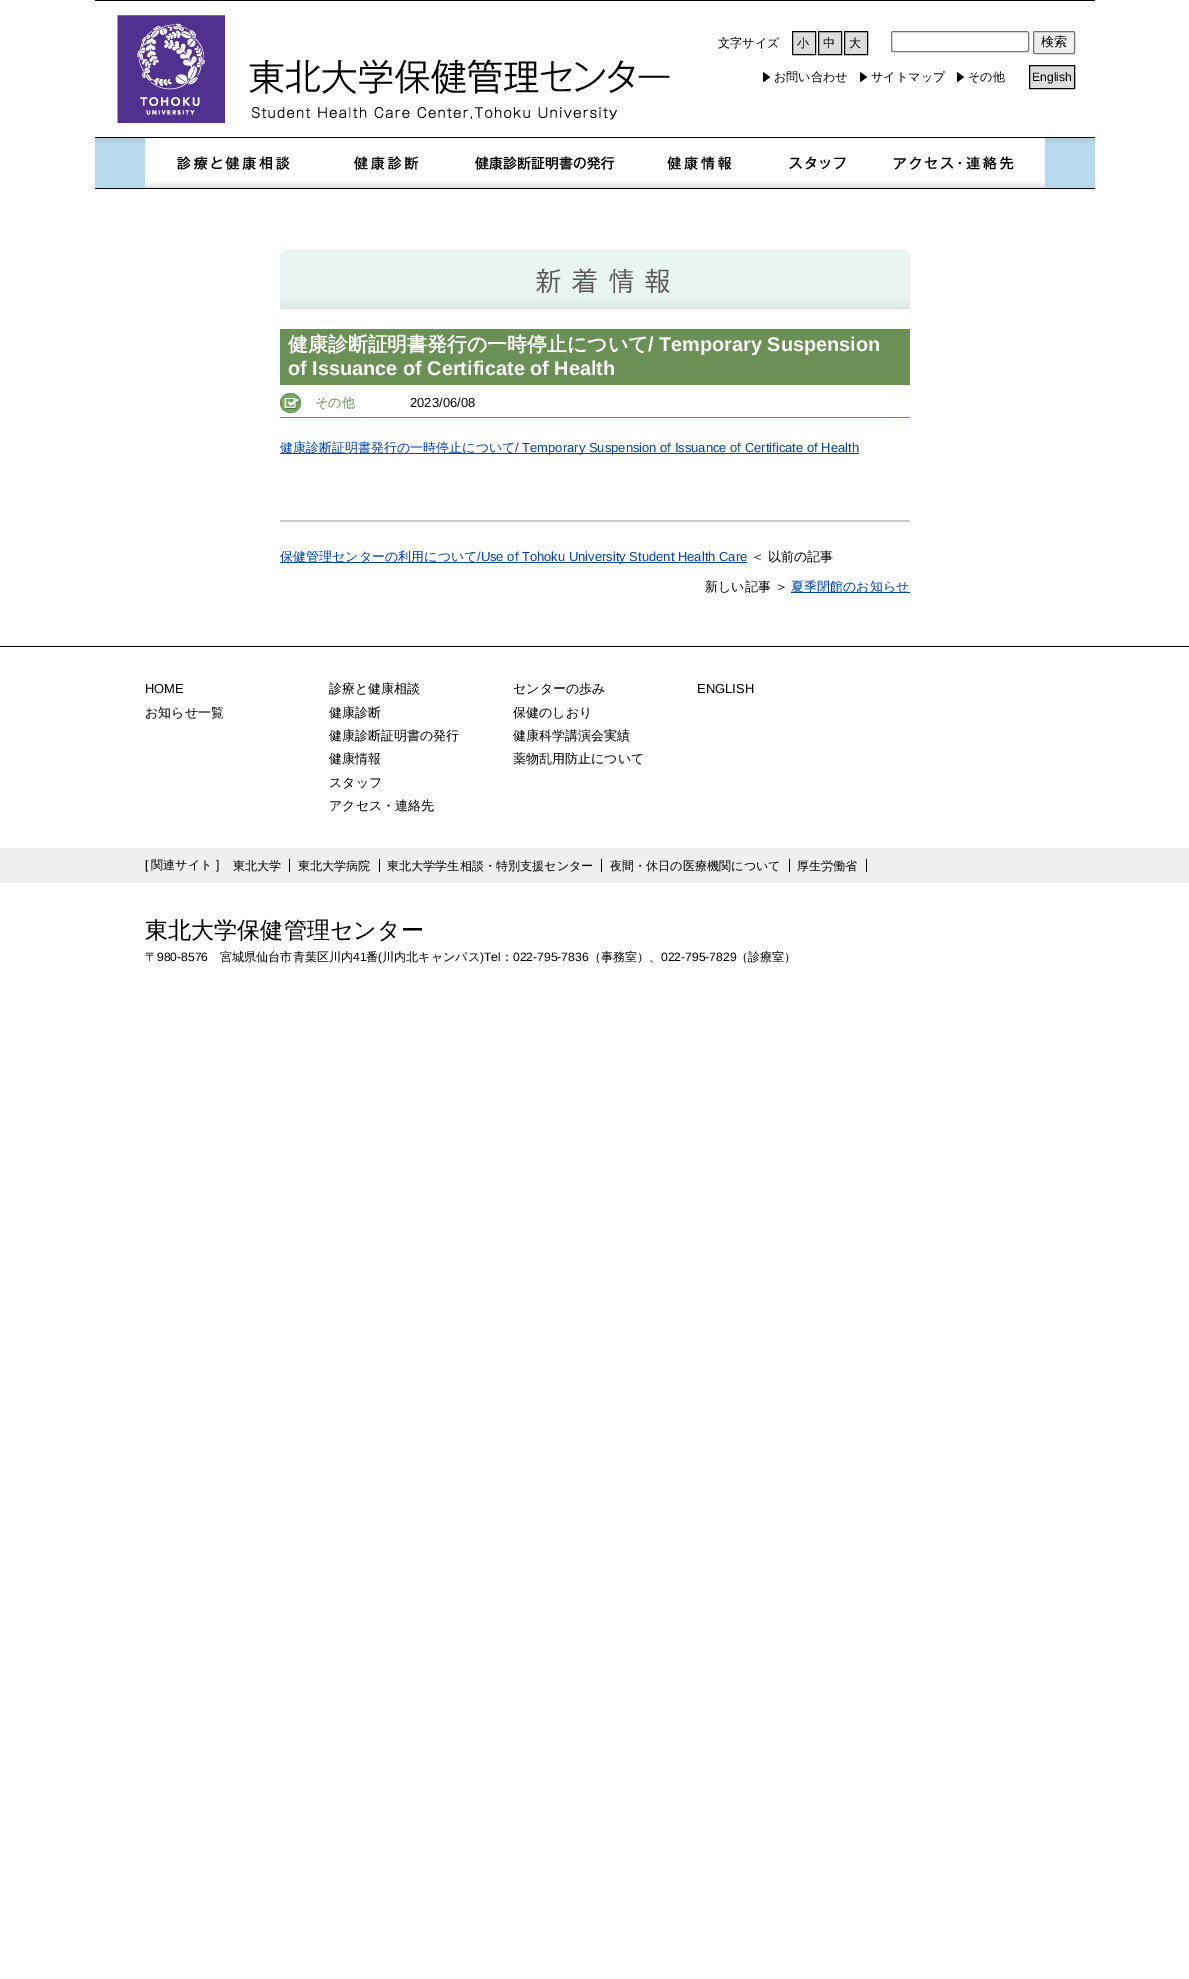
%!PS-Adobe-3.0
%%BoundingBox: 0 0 1189 1979
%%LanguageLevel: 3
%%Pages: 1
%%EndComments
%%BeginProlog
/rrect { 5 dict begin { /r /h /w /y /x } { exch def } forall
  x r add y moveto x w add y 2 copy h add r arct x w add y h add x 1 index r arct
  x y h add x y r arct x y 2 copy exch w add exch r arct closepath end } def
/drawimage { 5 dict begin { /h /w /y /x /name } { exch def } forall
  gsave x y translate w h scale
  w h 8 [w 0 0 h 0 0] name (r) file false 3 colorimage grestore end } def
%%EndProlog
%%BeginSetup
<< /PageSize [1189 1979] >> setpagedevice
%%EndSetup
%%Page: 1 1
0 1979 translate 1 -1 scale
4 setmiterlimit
1 setgray
0 0 1189 1979 rectfill
0 setgray
95 0 1000 1 rectfill
(images/1.raw) 117 11 553 112 drawimage
0.867 setgray
newpath 792.5 31.5 moveto 815.5 31.5 lineto 815.5 54.5 lineto 792.5 54.5 lineto closepath gsave fill grestore
0 setgray
stroke
0.867 setgray
newpath 818.5 31.5 moveto 841.5 31.5 lineto 841.5 54.5 lineto 818.5 54.5 lineto closepath gsave fill grestore
0 setgray
stroke
0.867 setgray
newpath 844.5 31.5 moveto 867.5 31.5 lineto 867.5 54.5 lineto 844.5 54.5 lineto closepath gsave fill grestore
0 setgray
stroke
0.463 setgray
891.5 31.5 137 20 1.5 rrect stroke
0.937 setgray
1033.5 31.5 41 22 1.5 rrect gsave fill grestore
0.463 setgray
stroke
(images/2.raw) 763 72 7 11 drawimage
(images/2.raw) 860 72 7 11 drawimage
(images/2.raw) 957 72 7 11 drawimage
0.867 setgray
newpath 1029.5 65.5 moveto 1074.5 65.5 lineto 1074.5 88.5 lineto 1029.5 88.5 lineto closepath gsave fill grestore
0 setgray
stroke
(images/3.raw) 95 138 1000 50 drawimage
95 137 1000 1 rectfill
95 188 1000 1 rectfill
(images/4.raw) 145 138 170 50 drawimage
(images/5.raw) 315 138 140 50 drawimage
(images/6.raw) 455 138 175 50 drawimage
(images/7.raw) 630 138 140 50 drawimage
(images/8.raw) 770 138 95 50 drawimage
(images/9.raw) 865 138 180 50 drawimage
(images/10.raw) 280 249 630 60 drawimage
0.8 setgray
280 520 630 2 rectfill
0.416 0.565 0.333 setrgbcolor
280 329 630 56 rectfill
(images/11.raw) 280 393 21 20 drawimage
280 417 630 1 rectfill
0 0.263 0.667 setrgbcolor
280 453 579 1 rectfill
280 562 467 1 rectfill
791 592 119 1 rectfill
0 setgray
0 646 1189 1 rectfill
0.937 setgray
0 848 1189 35 rectfill
0 setgray
289 859 1 13 rectfill
379 859 1 13 rectfill
601 859 1 13 rectfill
789 859 1 13 rectfill
866 859 1 13 rectfill
/WenQuanYiZenHei-Medium [12.1 0 0 -12.1 0 0] selectfont
718 47 moveto (文字サイズ) show
797 47 moveto (小) show
823 47 moveto (中) show
849 47 moveto (大) show
/WenQuanYiZenHei-Medium [13 0 0 -13 0 0] selectfont
1041 46 moveto (検索) show
/WenQuanYiZenHei-Medium [12.1 0 0 -12.1 0 0] selectfont
774 81 moveto (お問い合わせ) show
871 81 moveto (サイトマップ) show
968 81 moveto (その他) show
/LiberationSans-Regular [12.1 0 0 -12.1 0 0] selectfont
1032 81 moveto (English) show
/WenQuanYiZenHei-Bold [19.9 0 0 -19.9 0 0] selectfont
1 setgray
288 351 moveto (健康診断証明書発行の一時停止について) show
/LiberationSans-Bold [19.9 0 0 -19.9 0 0] selectfont
648 351 moveto (/ Temporary Suspension) show
288 375 moveto (of Issuance of Certificate of Health) show
/WenQuanYiZenHei-Medium [13 0 0 -13 0 0] selectfont
0.416 0.565 0.333 setrgbcolor
315 407 moveto (その他) show
/LiberationSans-Regular [13 0 0 -13 0 0] selectfont
0 setgray
410 407 moveto (2023/06/08) show
/WenQuanYiZenHei-Medium [13 0 0 -13 0 0] selectfont
0 0.263 0.667 setrgbcolor
280 452 moveto (健康診断証明書発行の一時停止について) show
/LiberationSans-Regular [13 0 0 -13 0 0] selectfont
515 452 moveto (/ Temporary Suspension of Issuance of Certificate of Health) show
/WenQuanYiZenHei-Medium [13 0 0 -13 0 0] selectfont
280 561 moveto (保健管理センターの利用について) show
/LiberationSans-Regular [13 0 0 -13 0 0] selectfont
477 561 moveto (/Use of Tohoku University Student Health Care) show
/WenQuanYiZenHei-Medium [13 0 0 -13 0 0] selectfont
0 setgray
751 561 moveto (＜ 以前の記事) show
705 591 moveto (新しい記事 ＞) show
0 0.263 0.667 setrgbcolor
791 591 moveto (夏季閉館のお知らせ) show
/LiberationSans-Regular [13 0 0 -13 0 0] selectfont
0 setgray
145 693 moveto (HOME) show
/WenQuanYiZenHei-Medium [13 0 0 -13 0 0] selectfont
145 717 moveto (お知らせ一覧) show
329 693 moveto (診療と健康相談) show
329 717 moveto (健康診断) show
329 740 moveto (健康診断証明書の発行) show
329 763 moveto (健康情報) show
329 787 moveto (スタッフ) show
329 810 moveto (アクセス・連絡先) show
513 693 moveto (センターの歩み) show
513 717 moveto (保健のしおり) show
513 740 moveto (健康科学講演会実績) show
513 763 moveto (薬物乱用防止について) show
/LiberationSans-Regular [13 0 0 -13 0 0] selectfont
697 693 moveto (ENGLISH) show
/LiberationSans-Regular [12.1 0 0 -12.1 0 0] selectfont
145 869 moveto ([) show
/WenQuanYiZenHei-Medium [12.1 0 0 -12.1 0 0] selectfont
151 869 moveto (関連サイト) show
/LiberationSans-Regular [12.1 0 0 -12.1 0 0] selectfont
216 869 moveto (]) show
/WenQuanYiZenHei-Medium [12.1 0 0 -12.1 0 0] selectfont
233 870 moveto (東北大学) show
298 870 moveto (東北大学病院) show
387 870 moveto (東北大学学生相談・特別支援センター) show
610 870 moveto (夜間・休日の医療機関について) show
797 870 moveto (厚生労働省) show
/WenQuanYiZenHei-Medium [23.1 0 0 -23.1 0 0] selectfont
145 938 moveto (東北大学保健管理センター) show
/WenQuanYiZenHei-Medium [12.1 0 0 -12.1 0 0] selectfont
145 961 moveto (〒) show
/LiberationSans-Regular [12.1 0 0 -12.1 0 0] selectfont
157 961 moveto (980-8576) show
/WenQuanYiZenHei-Medium [12.1 0 0 -12.1 0 0] selectfont
220 961 moveto (宮城県仙台市青葉区川内) show
/LiberationSans-Regular [12.1 0 0 -12.1 0 0] selectfont
353 961 moveto (41) show
/WenQuanYiZenHei-Medium [12.1 0 0 -12.1 0 0] selectfont
366 961 moveto (番) show
/LiberationSans-Regular [12.1 0 0 -12.1 0 0] selectfont
378 961 moveto (\() show
/WenQuanYiZenHei-Medium [12.1 0 0 -12.1 0 0] selectfont
382 961 moveto (川内北キャンパス) show
/LiberationSans-Regular [12.1 0 0 -12.1 0 0] selectfont
480 961 moveto (\)Tel) show
/WenQuanYiZenHei-Medium [12.1 0 0 -12.1 0 0] selectfont
501 961 moveto (：) show
/LiberationSans-Regular [12.1 0 0 -12.1 0 0] selectfont
513 961 moveto (022-795-7836) show
/WenQuanYiZenHei-Medium [12.1 0 0 -12.1 0 0] selectfont
589 961 moveto (（事務室）、) show
/LiberationSans-Regular [12.1 0 0 -12.1 0 0] selectfont
661 961 moveto (022-795-7829) show
/WenQuanYiZenHei-Medium [12.1 0 0 -12.1 0 0] selectfont
736 961 moveto (（診療室）) show
showpage
%%EOF
